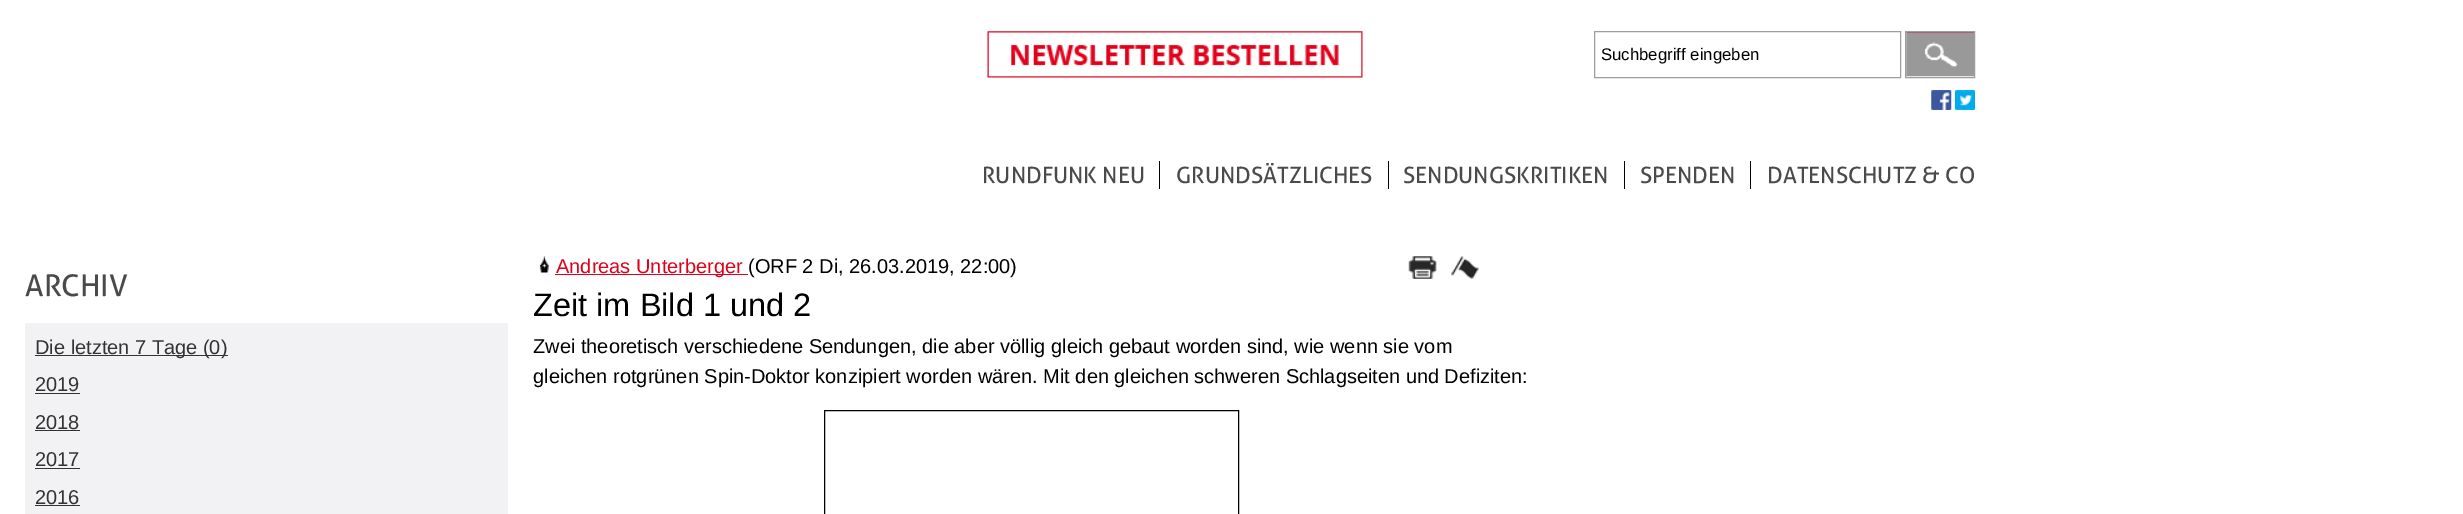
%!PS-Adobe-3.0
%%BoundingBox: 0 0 2463 514
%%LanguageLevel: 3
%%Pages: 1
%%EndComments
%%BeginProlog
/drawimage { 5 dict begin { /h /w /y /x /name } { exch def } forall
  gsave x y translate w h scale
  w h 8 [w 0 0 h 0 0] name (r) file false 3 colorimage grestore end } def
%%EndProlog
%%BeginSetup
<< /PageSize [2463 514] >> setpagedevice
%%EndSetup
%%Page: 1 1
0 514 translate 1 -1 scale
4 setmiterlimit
1 setgray
0 0 2463 514 rectfill
(images/1.raw) 987 31 376 47 drawimage
0.62 setgray
1594.5 31.5 306 46 rectstroke
(images/2.raw) 1906 32 68 45 drawimage
1905.5 31.5 69 46 rectstroke
(images/3.raw) 1931 90 21 20 drawimage
(images/4.raw) 1955 90 20 20 drawimage
0 setgray
1159 161 1 28 rectfill
1388 161 1 28 rectfill
1624 161 1 28 rectfill
1750 161 1 28 rectfill
0.949 0.949 0.957 setrgbcolor
25 323 483 191 rectfill
0.2 setgray
35 355 193 1 rectfill
35 393 45 1 rectfill
35 430 45 1 rectfill
35 468 45 1 rectfill
35 505 45 1 rectfill
(images/5.raw) 539 256 10 17 drawimage
0.882 0.004 0.106 setrgbcolor
555 274 193 1 rectfill
(images/6.raw) 1408 256 29 23 drawimage
(images/7.raw) 1451 256 28 23 drawimage
0 setgray
824.5 410.5 414 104 rectstroke
/LiberationSans-Regular [16.75 0 0 -16.75 0 0] selectfont
1601 60 moveto (Suchbegriff eingeben) show
/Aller-Regular [22.5 0 0 -22.5 0 0] selectfont
0.294 0.29 0.29 setrgbcolor
982 183 moveto (RUNDFUNK NEU) show
1176 183 moveto (GRUNDSÄTZLICHES) show
1403 183 moveto (SENDUNGSKRITIKEN) show
1640 183 moveto (SPENDEN) show
1767 183 moveto (DATENSCHUTZ & CO) show
/Aller-Regular [30 0 0 -30 0 0] selectfont
25 296 moveto (ARCHIV) show
/LiberationSans-Regular [20 0 0 -20 0 0] selectfont
0.2 setgray
35 354 moveto (Die letzten 7 Tage \(0\)) show
35 391 moveto (2019) show
35 429 moveto (2018) show
35 466 moveto (2017) show
35 504 moveto (2016) show
0.882 0.004 0.106 setrgbcolor
556 273 moveto (Andreas Unterberger) show
0 setgray
748 273 moveto (\(ORF 2 Di, 26.03.2019, 22:00\)) show
/LiberationSans-Regular [32.5 0 0 -32.5 0 0] selectfont
533 316 moveto (Zeit im Bild 1 und 2) show
/LiberationSans-Regular [20 0 0 -20 0 0] selectfont
533 353 moveto (Zwei theoretisch verschiedene Sendungen, die aber völlig gleich gebaut worden sind, wie wenn sie vom) show
533 383 moveto (gleichen rotgrünen Spin-Doktor konzipiert worden wären. Mit den gleichen schweren Schlagseiten und Defiziten:) show
showpage
%%EOF
